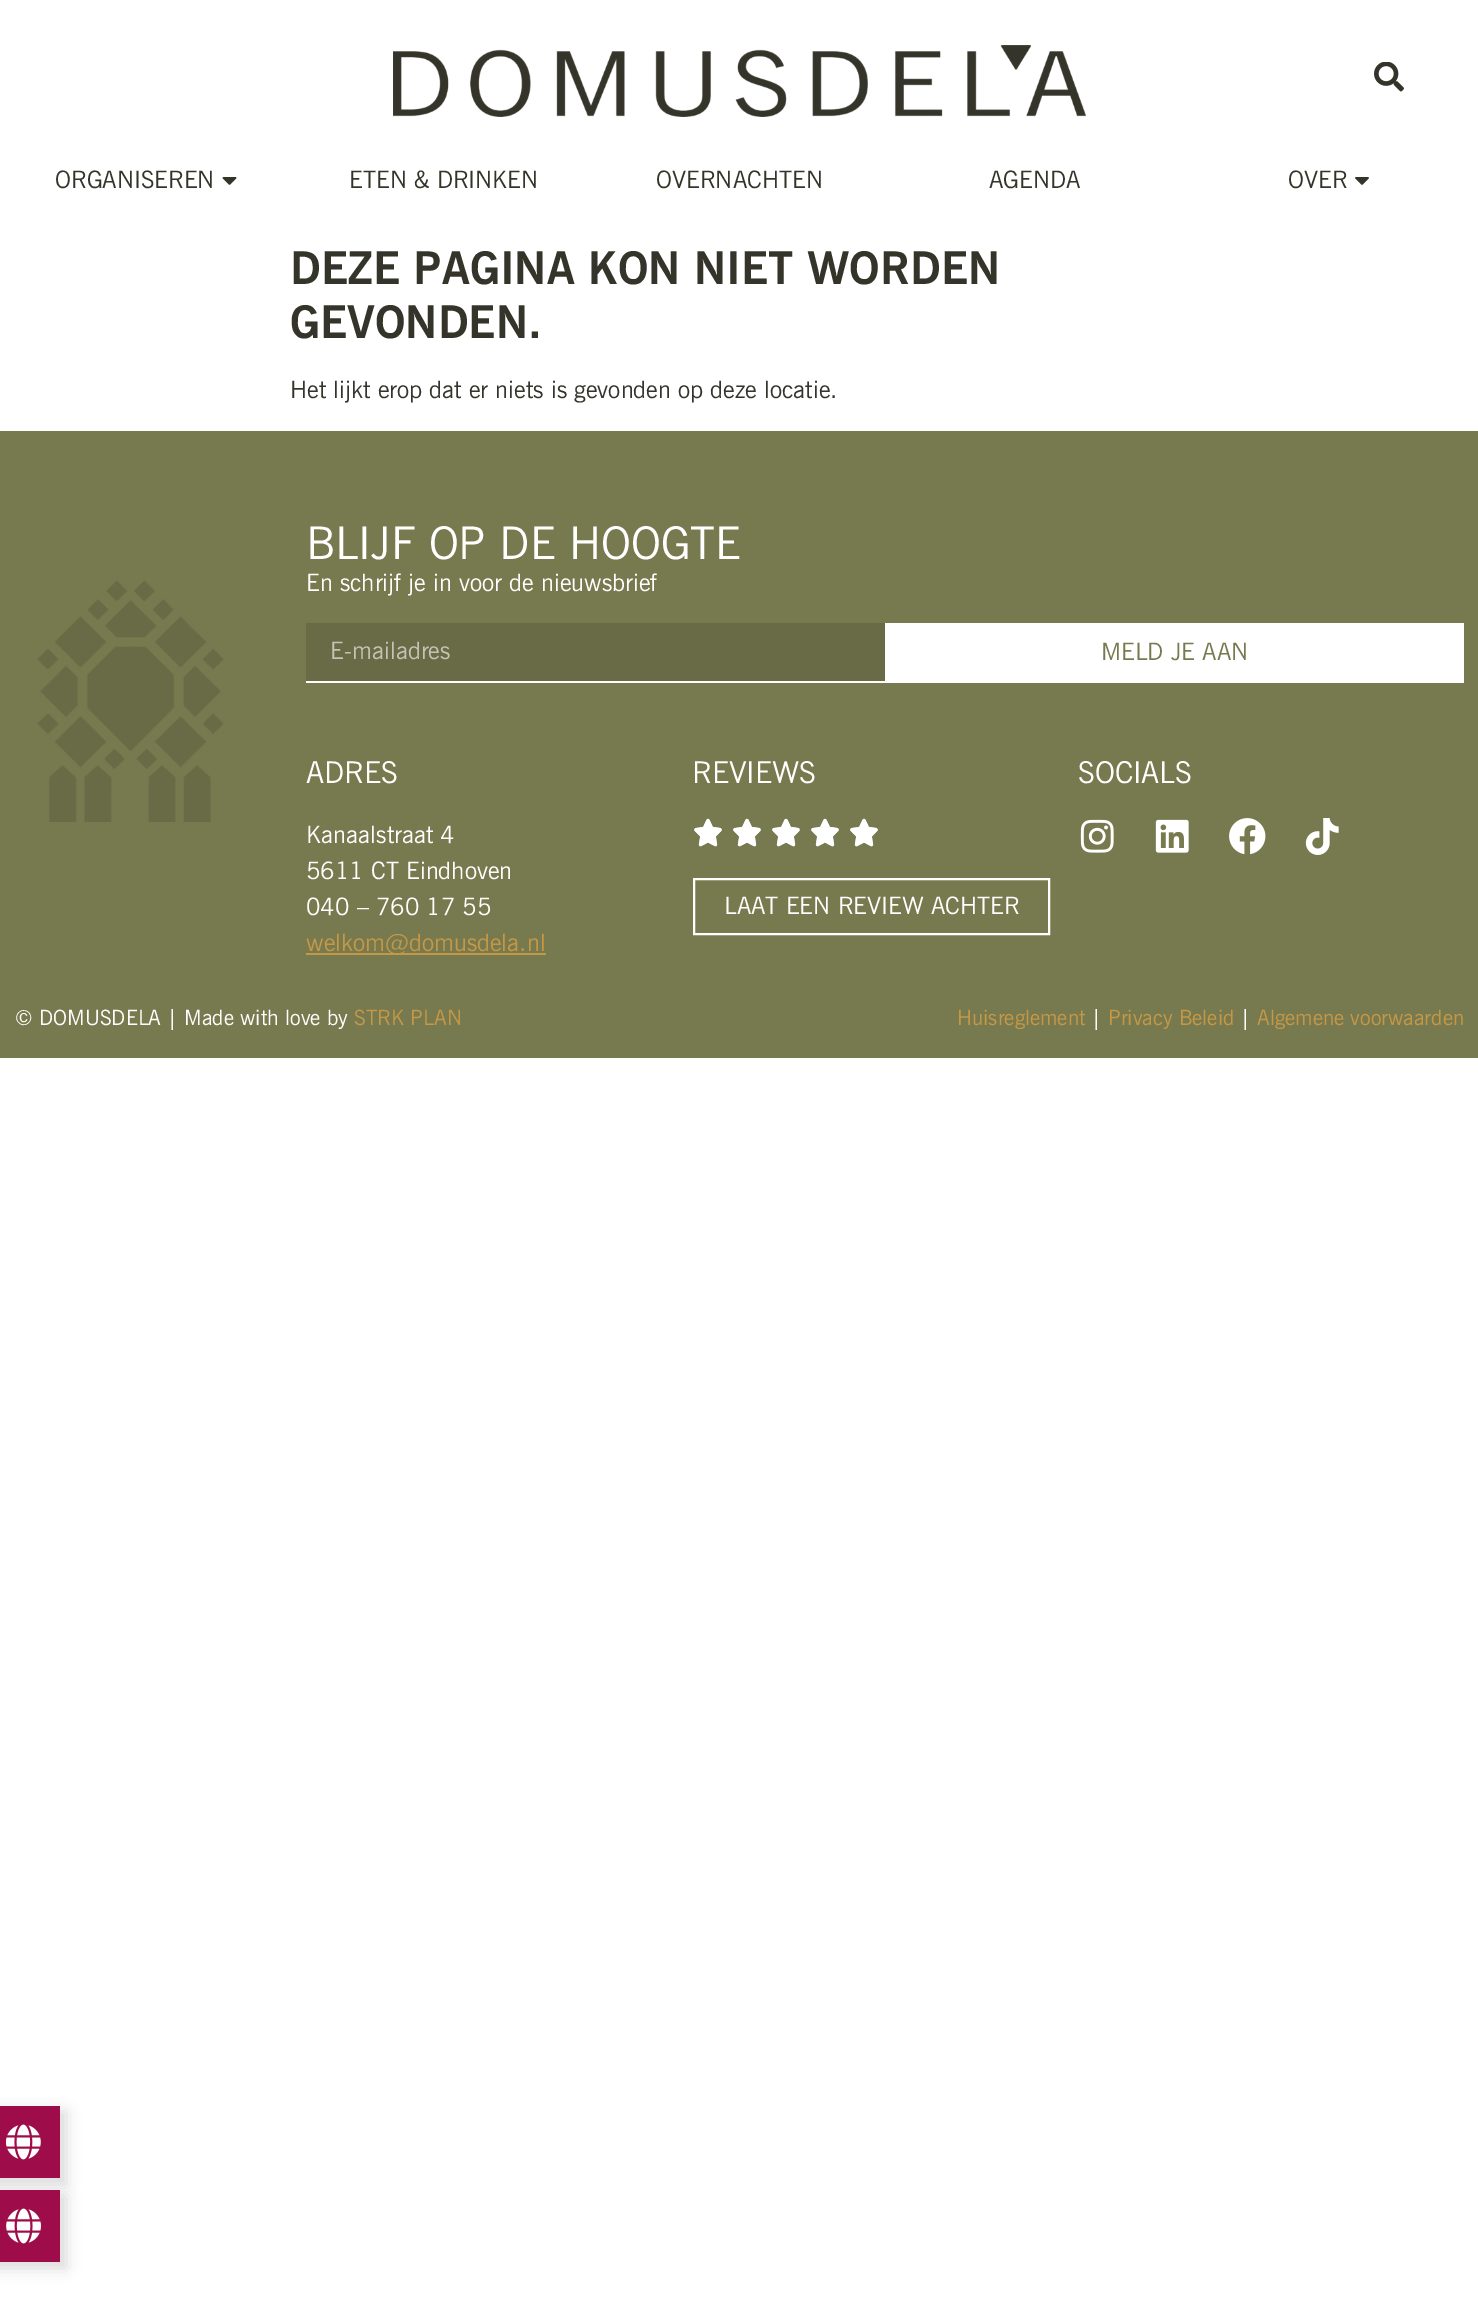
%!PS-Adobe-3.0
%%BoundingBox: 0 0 1478 2299
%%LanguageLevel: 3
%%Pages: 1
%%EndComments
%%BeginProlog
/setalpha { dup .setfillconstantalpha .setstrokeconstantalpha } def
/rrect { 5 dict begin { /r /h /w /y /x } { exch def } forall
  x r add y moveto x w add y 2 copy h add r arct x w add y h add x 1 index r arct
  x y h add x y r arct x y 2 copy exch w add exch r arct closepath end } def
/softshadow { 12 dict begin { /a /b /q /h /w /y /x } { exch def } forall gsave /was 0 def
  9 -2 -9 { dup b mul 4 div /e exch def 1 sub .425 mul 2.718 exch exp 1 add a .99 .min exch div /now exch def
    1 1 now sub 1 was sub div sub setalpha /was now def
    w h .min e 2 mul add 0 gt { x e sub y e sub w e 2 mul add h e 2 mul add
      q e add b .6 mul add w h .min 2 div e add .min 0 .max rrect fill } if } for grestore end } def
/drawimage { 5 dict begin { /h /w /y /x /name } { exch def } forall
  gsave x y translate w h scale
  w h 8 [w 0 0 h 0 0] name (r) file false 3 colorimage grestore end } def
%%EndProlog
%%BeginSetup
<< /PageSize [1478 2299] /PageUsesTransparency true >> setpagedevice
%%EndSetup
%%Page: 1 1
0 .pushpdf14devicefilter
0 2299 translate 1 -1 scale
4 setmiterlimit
1 setgray
0 0 1478 2299 rectfill
(images/1.raw) 393 45 693 72 drawimage
(images/2.raw) 1374 62 30 30 drawimage
(images/3.raw) 222 177 15 8 drawimage
(images/4.raw) 1355 177 14 8 drawimage
0.467 0.475 0.306 setrgbcolor
0 431 1478 627 rectfill
(images/5.raw) 37 580 187 242 drawimage
0.412 0.42 0.275 setrgbcolor
306 623 579 58 rectfill
1 setgray
306 681 579 2 rectfill
885 623 579 60 rectfill
0.773 0.596 0.271 setrgbcolor
306 953 240 2 rectfill
(images/6.raw) 694 818 28 29 drawimage
(images/7.raw) 694 818 28 29 drawimage
(images/6.raw) 733 818 28 29 drawimage
(images/7.raw) 733 818 28 29 drawimage
(images/6.raw) 772 818 28 29 drawimage
(images/7.raw) 772 818 28 29 drawimage
(images/6.raw) 811 818 28 29 drawimage
(images/7.raw) 811 818 28 29 drawimage
(images/6.raw) 850 818 28 29 drawimage
(images/7.raw) 850 818 28 29 drawimage
1 setgray
2 setlinewidth
694 879 355 55 rectstroke
(images/8.raw) 1080 819 34 34 drawimage
(images/9.raw) 1155 819 34 34 drawimage
(images/10.raw) 1229 818 37 37 drawimage
(images/11.raw) 1305 818 34 37 drawimage
0 setgray
-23 2112 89 72 0 7.5 0.15 softshadow
0.62 0.051 0.29 setrgbcolor
0 2106 60 72 rectfill
(images/12.raw) 6 2124 35 36 drawimage
0 setgray
-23 2196 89 72 0 7.5 0.15 softshadow
0.62 0.051 0.29 setrgbcolor
0 2190 60 72 rectfill
(images/13.raw) 6 2208 35 36 drawimage
/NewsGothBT-Regular [24 0 0 -24 0 0] selectfont
0.204 0.204 0.165 setrgbcolor
55 188 moveto (ORGANISEREN) show
349 188 moveto (ETEN & DRINKEN) show
656 188 moveto (OVERNACHTEN) show
989 188 moveto (AGENDA) show
1288 188 moveto (OVER) show
/NewsGothBT-Bold [45 0 0 -45 0 0] selectfont
290 284 moveto (DEZE PAGINA KON NIET WORDEN) show
290 338 moveto (GEVONDEN.) show
/NewsGothBT-Regular [24 0 0 -24 0 0] selectfont
290 398 moveto (Het lijkt erop dat er niets is gevonden op deze locatie.) show
/NewsGothBT-Regular [45 0 0 -45 0 0] selectfont
1 setgray
306 559 moveto (BLIJF OP DE HOOGTE) show
/NewsGothBT-Regular [24 0 0 -24 0 0] selectfont
306 591 moveto (En schrijf je in voor de nieuwsbrief) show
0.765 0.769 0.71 setrgbcolor
330 659 moveto (E-mailadres) show
0.467 0.475 0.306 setrgbcolor
1101 660 moveto (MELD JE AAN) show
/NewsGothBT-Regular [30 0 0 -30 0 0] selectfont
1 setgray
306 783 moveto (ADRES) show
/NewsGothBT-Regular [24 0 0 -24 0 0] selectfont
306 843 moveto (Kanaalstraat 4) show
306 879 moveto (5611 CT Eindhoven) show
306 915 moveto (040 – 760 17 55) show
0.773 0.596 0.271 setrgbcolor
306 951 moveto (welkom@domusdela.nl) show
/NewsGothBT-Regular [30 0 0 -30 0 0] selectfont
1 setgray
692 783 moveto (REVIEWS) show
/NewsGothBT-Regular [24 0 0 -24 0 0] selectfont
724 914 moveto (LAAT EEN REVIEW ACHTER) show
/NewsGothBT-Regular [30 0 0 -30 0 0] selectfont
1078 783 moveto (SOCIALS) show
/NewsGothBT-Regular [21 0 0 -21 0 0] selectfont
15 1025 moveto (© DOMUSDELA | Made with love by) show
0.773 0.596 0.271 setrgbcolor
354 1025 moveto (STRK PLAN) show
957 1025 moveto (Huisreglement) show
1 setgray
1091 1025 moveto (|) show
0.773 0.596 0.271 setrgbcolor
1108 1025 moveto (Privacy Beleid) show
1 setgray
1240 1025 moveto (|) show
0.773 0.596 0.271 setrgbcolor
1257 1025 moveto (Algemene voorwaarden) show
.poppdf14devicefilter showpage
%%EOF
